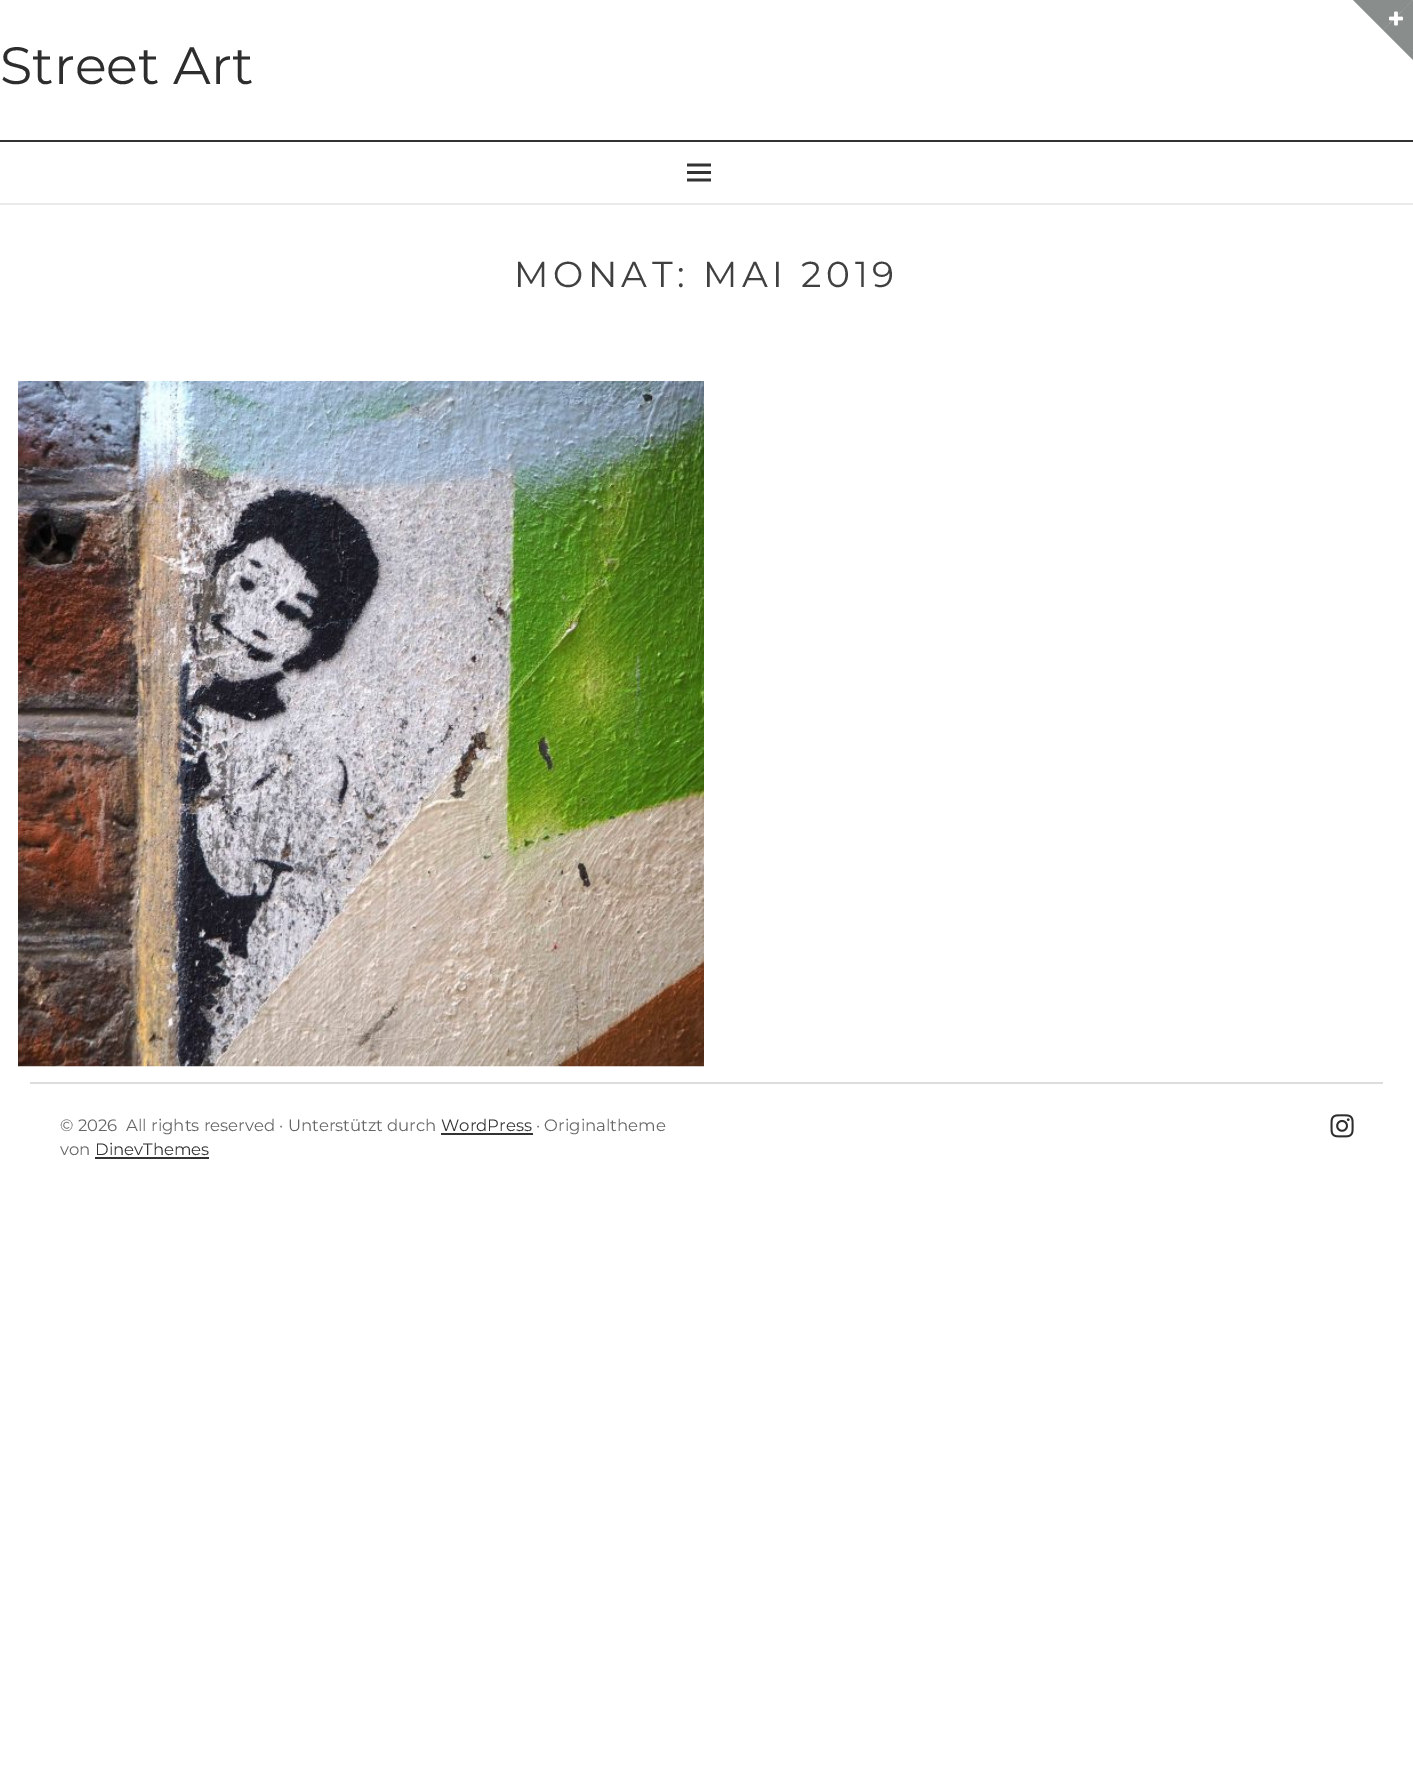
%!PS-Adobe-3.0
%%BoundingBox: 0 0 1413 1771
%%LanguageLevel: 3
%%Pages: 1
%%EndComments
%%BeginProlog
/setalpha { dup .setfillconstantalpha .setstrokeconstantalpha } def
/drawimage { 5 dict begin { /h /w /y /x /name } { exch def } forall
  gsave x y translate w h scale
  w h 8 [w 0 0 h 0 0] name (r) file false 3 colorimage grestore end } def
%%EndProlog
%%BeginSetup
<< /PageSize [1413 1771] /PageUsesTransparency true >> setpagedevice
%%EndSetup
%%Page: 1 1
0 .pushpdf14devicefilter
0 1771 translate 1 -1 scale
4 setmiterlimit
1 setgray
0 0 1413 1771 rectfill
0.537 0.553 0.545 setrgbcolor
newpath 1353 0 moveto 1413 0 lineto 1383 30 lineto closepath fill
0.8 setalpha
0.424 0.439 0.431 setrgbcolor
newpath 1413 0 moveto 1413 60 lineto 1383 30 lineto closepath fill
1 setalpha
(images/1.raw) 1389 11 14 15 drawimage
0.2 setgray
0 140 1413 2 rectfill
0.918 setgray
0 203 1413 2 rectfill
(images/2.raw) 687 163 24 19 drawimage
(images/3.raw) 18 381 686 686 drawimage
0.867 setgray
30 1082 1353 2 rectfill
0.2 setgray
441 1133 92 2 rectfill
95 1157 114 2 rectfill
(images/4.raw) 1330 1114 24 24 drawimage
/Montserrat-Thin [52.5 0 0 -52.5 0 0] selectfont
0.176 setgray
0 84 moveto (Street Art) show
/Montserrat-Thin [36 0 0 -36 0 0] selectfont
0.251 setgray
514 287 moveto 4.5 0 (MONAT: MAI 2019) ashow
/Montserrat-Thin [16.5 0 0 -16.5 0 0] selectfont
0.4 setgray
60 1131 moveto (© 2026) show
126 1131 moveto (All rights reserved · Unterstützt durch) show
0.2 setgray
441 1131 moveto (WordPress) show
0.4 setgray
536 1131 moveto (· Originaltheme) show
60 1155 moveto (von) show
0.2 setgray
95 1155 moveto (DinevThemes) show
.poppdf14devicefilter showpage
%%EOF
